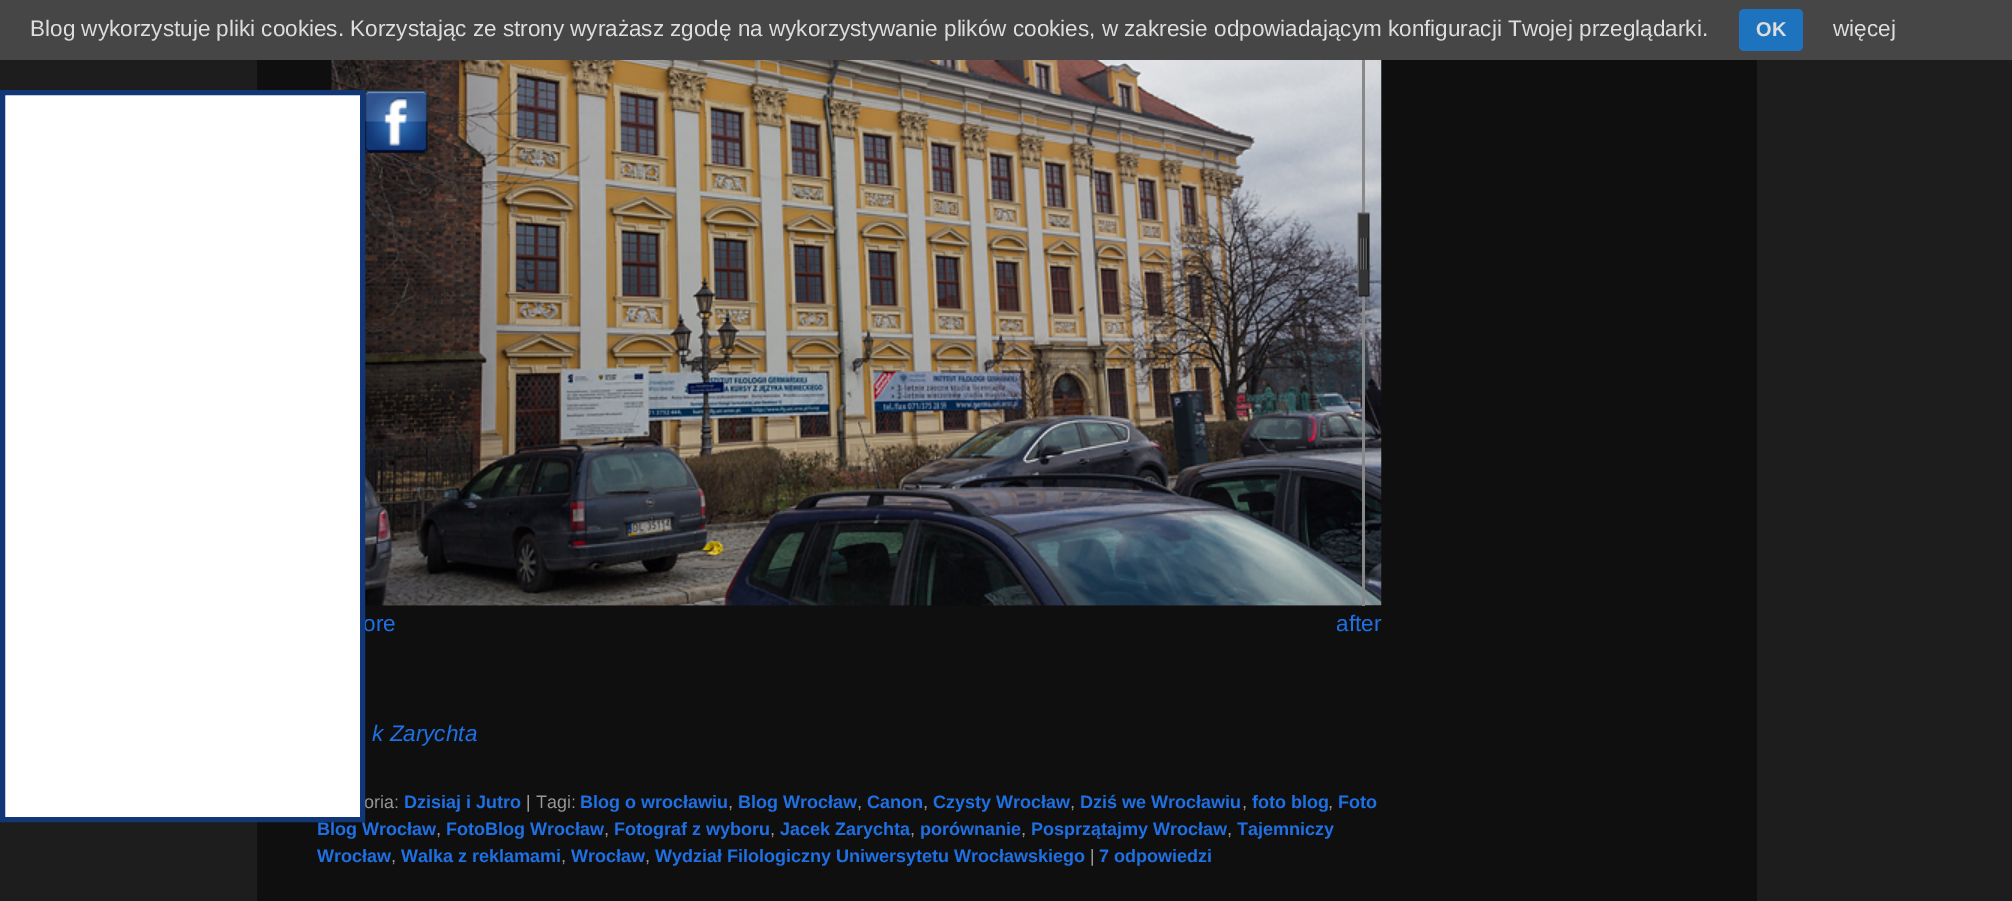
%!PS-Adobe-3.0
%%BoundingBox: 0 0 2012 901
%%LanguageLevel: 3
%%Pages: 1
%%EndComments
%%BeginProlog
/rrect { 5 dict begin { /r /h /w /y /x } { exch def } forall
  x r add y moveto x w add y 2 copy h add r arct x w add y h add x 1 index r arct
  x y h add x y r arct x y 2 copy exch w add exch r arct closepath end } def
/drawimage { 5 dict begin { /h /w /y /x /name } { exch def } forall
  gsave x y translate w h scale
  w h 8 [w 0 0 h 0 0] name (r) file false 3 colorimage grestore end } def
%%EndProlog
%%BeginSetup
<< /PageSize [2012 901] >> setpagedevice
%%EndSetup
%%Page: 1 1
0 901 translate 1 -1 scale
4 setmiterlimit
0.114 setgray
0 0 2012 901 rectfill
0.275 setgray
0 0 2012 60 rectfill
0.118 0.451 0.745 setrgbcolor
1739 9 64 42 5 rrect fill
0.059 setgray
257 60 1500 841 rectfill
(images/2.raw) 331 60 1051 546 drawimage
(images/3.raw) 331 60 1031 546 drawimage
(images/1.raw) 365 90 63 64 drawimage
0.533 setgray
1362 60 3 546 rectfill
(images/4.raw) 1357 212 13 85 drawimage
/LiberationSans-Regular [22.5 0 0 -22.5 0 0] selectfont
0.867 setgray
30 36 moveto (Blog wykorzystuje pliki cookies. Korzystając ze strony wyrażasz zgodę na wykorzystywanie plików cookies, w zakresie odpowiadającym konfiguracji Twojej przeglądarki.) show
/LiberationSans-Bold [20 0 0 -20 0 0] selectfont
1756 36 moveto (OK) show
/LiberationSans-Regular [22.5 0 0 -22.5 0 0] selectfont
1833 36 moveto (więcej) show
0.122 0.439 0.894 setrgbcolor
363 631 moveto (ore) show
1336 631 moveto (after) show
/LiberationSans-Italic [22.5 0 0 -22.5 0 0] selectfont
372 741 moveto (k Zarychta) show
/LiberationSans-Regular [18 0 0 -18 0 0] selectfont
0.6 setgray
364 808 moveto (oria:) show
/LiberationSans-Bold [18 0 0 -18 0 0] selectfont
0.122 0.439 0.894 setrgbcolor
404 808 moveto (Dzisiaj i Jutro) show
/LiberationSans-Regular [18 0 0 -18 0 0] selectfont
0.6 setgray
526 808 moveto (| Tagi:) show
/LiberationSans-Bold [18 0 0 -18 0 0] selectfont
0.122 0.439 0.894 setrgbcolor
580 808 moveto (Blog o wrocławiu) show
/LiberationSans-Regular [18 0 0 -18 0 0] selectfont
0.6 setgray
728 808 moveto (,) show
/LiberationSans-Bold [18 0 0 -18 0 0] selectfont
0.122 0.439 0.894 setrgbcolor
738 808 moveto (Blog Wrocław) show
/LiberationSans-Regular [18 0 0 -18 0 0] selectfont
0.6 setgray
857 808 moveto (,) show
/LiberationSans-Bold [18 0 0 -18 0 0] selectfont
0.122 0.439 0.894 setrgbcolor
867 808 moveto (Canon) show
/LiberationSans-Regular [18 0 0 -18 0 0] selectfont
0.6 setgray
923 808 moveto (,) show
/LiberationSans-Bold [18 0 0 -18 0 0] selectfont
0.122 0.439 0.894 setrgbcolor
933 808 moveto (Czysty Wrocław) show
/LiberationSans-Regular [18 0 0 -18 0 0] selectfont
0.6 setgray
1070 808 moveto (,) show
/LiberationSans-Bold [18 0 0 -18 0 0] selectfont
0.122 0.439 0.894 setrgbcolor
1080 808 moveto (Dziś we Wrocławiu) show
/LiberationSans-Regular [18 0 0 -18 0 0] selectfont
0.6 setgray
1242 808 moveto (,) show
/LiberationSans-Bold [18 0 0 -18 0 0] selectfont
0.122 0.439 0.894 setrgbcolor
1252 808 moveto (foto blog) show
/LiberationSans-Regular [18 0 0 -18 0 0] selectfont
0.6 setgray
1328 808 moveto (,) show
/LiberationSans-Bold [18 0 0 -18 0 0] selectfont
0.122 0.439 0.894 setrgbcolor
1338 808 moveto (Foto) show
317 835 moveto (Blog Wrocław) show
1 setgray
newpath 2.5 92.5 moveto 362.5 92.5 lineto 362.5 819.5 lineto 2.5 819.5 lineto closepath gsave fill grestore
0.071 0.216 0.463 setrgbcolor
5 setlinewidth
stroke
/LiberationSans-Regular [18 0 0 -18 0 0] selectfont
0.6 setgray
436 835 moveto (,) show
/LiberationSans-Bold [18 0 0 -18 0 0] selectfont
0.122 0.439 0.894 setrgbcolor
446 835 moveto (FotoBlog Wrocław) show
/LiberationSans-Regular [18 0 0 -18 0 0] selectfont
0.6 setgray
604 835 moveto (,) show
/LiberationSans-Bold [18 0 0 -18 0 0] selectfont
0.122 0.439 0.894 setrgbcolor
614 835 moveto (Fotograf z wyboru) show
/LiberationSans-Regular [18 0 0 -18 0 0] selectfont
0.6 setgray
770 835 moveto (,) show
/LiberationSans-Bold [18 0 0 -18 0 0] selectfont
0.122 0.439 0.894 setrgbcolor
780 835 moveto (Jacek Zarychta) show
/LiberationSans-Regular [18 0 0 -18 0 0] selectfont
0.6 setgray
910 835 moveto (,) show
/LiberationSans-Bold [18 0 0 -18 0 0] selectfont
0.122 0.439 0.894 setrgbcolor
920 835 moveto (porównanie) show
/LiberationSans-Regular [18 0 0 -18 0 0] selectfont
0.6 setgray
1021 835 moveto (,) show
/LiberationSans-Bold [18 0 0 -18 0 0] selectfont
0.122 0.439 0.894 setrgbcolor
1031 835 moveto (Posprzątajmy Wrocław) show
/LiberationSans-Regular [18 0 0 -18 0 0] selectfont
0.6 setgray
1227 835 moveto (,) show
/LiberationSans-Bold [18 0 0 -18 0 0] selectfont
0.122 0.439 0.894 setrgbcolor
1237 835 moveto (Tajemniczy) show
317 862 moveto (Wrocław) show
/LiberationSans-Regular [18 0 0 -18 0 0] selectfont
0.6 setgray
391 862 moveto (,) show
/LiberationSans-Bold [18 0 0 -18 0 0] selectfont
0.122 0.439 0.894 setrgbcolor
401 862 moveto (Walka z reklamami) show
/LiberationSans-Regular [18 0 0 -18 0 0] selectfont
0.6 setgray
561 862 moveto (,) show
/LiberationSans-Bold [18 0 0 -18 0 0] selectfont
0.122 0.439 0.894 setrgbcolor
571 862 moveto (Wrocław) show
/LiberationSans-Regular [18 0 0 -18 0 0] selectfont
0.6 setgray
645 862 moveto (,) show
/LiberationSans-Bold [18 0 0 -18 0 0] selectfont
0.122 0.439 0.894 setrgbcolor
655 862 moveto (Wydział Filologiczny Uniwersytetu Wrocławskiego) show
/LiberationSans-Regular [18 0 0 -18 0 0] selectfont
0.6 setgray
1090 862 moveto (|) show
/LiberationSans-Bold [18 0 0 -18 0 0] selectfont
0.122 0.439 0.894 setrgbcolor
1099 862 moveto (7 odpowiedzi) show
showpage
%%EOF
